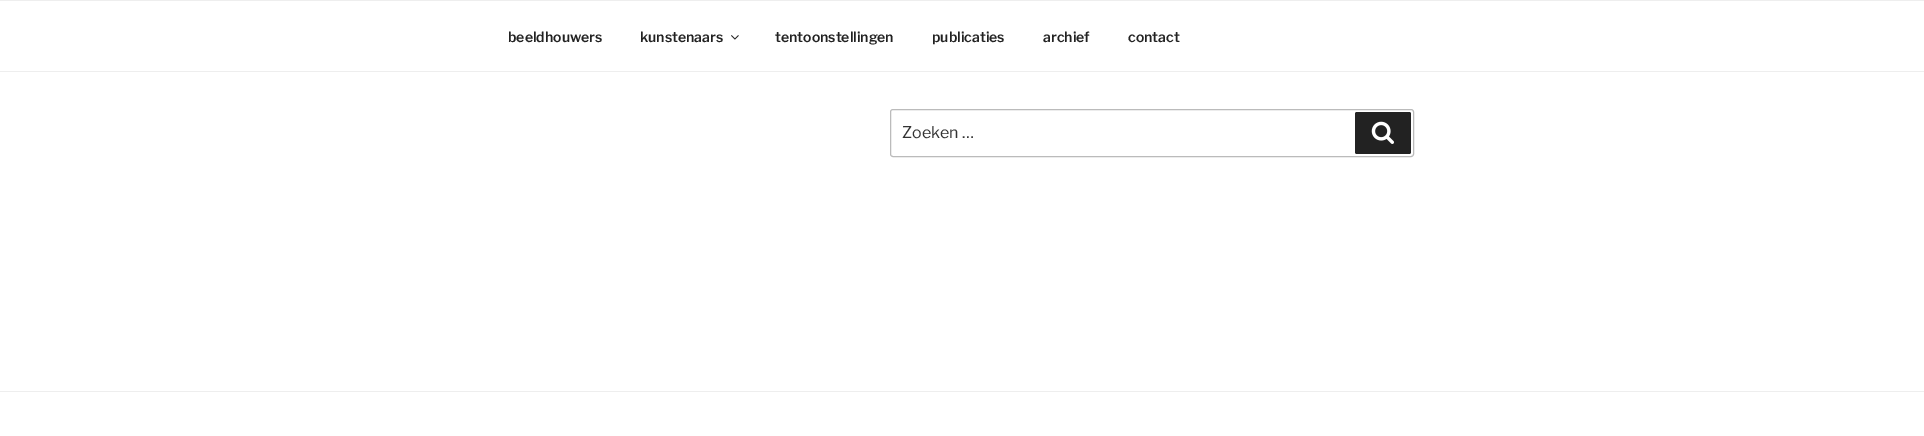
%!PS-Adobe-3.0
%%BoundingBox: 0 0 1924 436
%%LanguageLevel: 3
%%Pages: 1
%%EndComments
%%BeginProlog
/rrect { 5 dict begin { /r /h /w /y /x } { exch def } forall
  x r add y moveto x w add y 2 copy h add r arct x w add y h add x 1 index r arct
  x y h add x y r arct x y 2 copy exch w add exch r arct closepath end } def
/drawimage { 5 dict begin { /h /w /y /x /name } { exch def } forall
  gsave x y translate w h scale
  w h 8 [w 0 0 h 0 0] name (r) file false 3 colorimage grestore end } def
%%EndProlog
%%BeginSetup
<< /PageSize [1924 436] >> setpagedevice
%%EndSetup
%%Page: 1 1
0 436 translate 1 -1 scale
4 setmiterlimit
1 setgray
0 0 1924 436 rectfill
0.933 setgray
0 0 1924 1 rectfill
0 71 1924 1 rectfill
(images/1.raw) 731 35 8 5 drawimage
0.733 setgray
890.5 109.5 523 47 2.5 rrect stroke
0.133 setgray
1355 112 56 42 2 rrect fill
(images/2.raw) 1371 121 23 23 drawimage
0.933 setgray
0 391 1924 1 rectfill
/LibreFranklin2-Thin [14 0 0 -14 0 0] selectfont
0.133 setgray
508 42 moveto (beeldhouwers) show
640 42 moveto (kunstenaars) show
775 42 moveto (tentoonstellingen) show
932 42 moveto (publicaties) show
1043 42 moveto (archief) show
1128 42 moveto (contact) show
/LibreFranklin-Thin [16 0 0 -16 0 0] selectfont
0.2 setgray
902 138 moveto (Zoeken …) show
showpage
%%EOF
